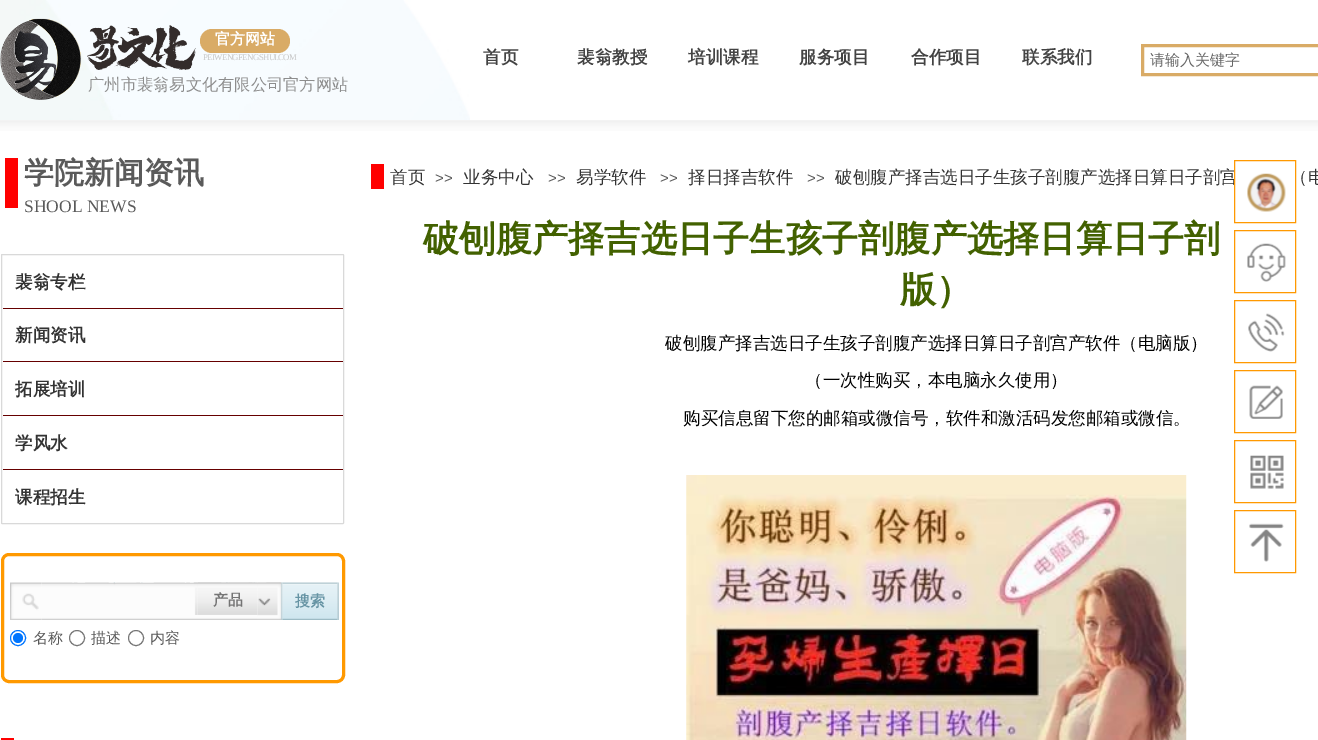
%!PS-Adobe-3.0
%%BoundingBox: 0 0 1318 740
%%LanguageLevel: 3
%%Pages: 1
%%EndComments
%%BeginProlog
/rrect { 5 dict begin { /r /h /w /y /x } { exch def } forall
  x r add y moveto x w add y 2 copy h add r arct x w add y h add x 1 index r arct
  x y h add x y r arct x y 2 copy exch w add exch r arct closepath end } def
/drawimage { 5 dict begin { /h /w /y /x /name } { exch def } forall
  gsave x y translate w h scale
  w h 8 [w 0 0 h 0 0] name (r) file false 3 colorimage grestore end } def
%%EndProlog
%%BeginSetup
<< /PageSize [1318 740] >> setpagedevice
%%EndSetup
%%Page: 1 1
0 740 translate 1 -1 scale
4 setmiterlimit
1 setgray
0 0 1318 740 rectfill
(images/1.raw) 0 0 470 120 drawimage
(images/2.raw) 0 18 82 82 drawimage
(images/3.raw) 87 25 109 45 drawimage
0.851 0.671 0.4 setrgbcolor
200 29 90 24 12 rrect fill
3 setlinewidth
1142.5 45.5 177 29 rectstroke
(images/4.raw) 0 120 1318 11 drawimage
1 0 0 setrgbcolor
5 158 13 50 rectfill
371 164 13 25 rectfill
0.851 setgray
1 setlinewidth
1.5 254.5 342 269 0.5 rrect stroke
0.4 0 0 setrgbcolor
3 308 340 1 rectfill
3 361 340 1 rectfill
3 415 340 1 rectfill
3 469 340 1 rectfill
(images/5.raw) 686 475 501 265 drawimage
1 0.6 0 setrgbcolor
3 setlinewidth
2.5 554.5 341 127 6.5 rrect stroke
(images/6.raw) 10 582 32 38 drawimage
(images/7.raw) 41 582 241 38 drawimage
(images/8.raw) 193 582 5 33 drawimage
(images/9.raw) 197 582 61 33 drawimage
(images/11.raw) 281 582 2 38 drawimage
(images/10.raw) 257 582 25 38 drawimage
(images/12.raw) 282 582 56 38 drawimage
(images/13.raw) 337 582 2 38 drawimage
0 0.459 1 setrgbcolor
1 setlinewidth
newpath 18 638 7.5 0 360 arc closepath stroke
newpath 18 638 5 0 360 arc closepath fill
0.463 setgray
newpath 77 638 7.5 0 360 arc closepath stroke
newpath 136 638 7.5 0 360 arc closepath stroke
1 0 0 setrgbcolor
1 738 13 2 rectfill
1 0.6 0 setrgbcolor
1234.5 230.5 61 62 rectstroke
(images/15.raw) 1247 243 39 39 drawimage
1234.5 300.5 61 62 rectstroke
(images/16.raw) 1248 313 37 39 drawimage
1234.5 370.5 61 62 rectstroke
(images/17.raw) 1249 385 34 34 drawimage
1234.5 440.5 61 62 rectstroke
(images/18.raw) 1250 455 34 34 drawimage
1234.5 510.5 61 62 rectstroke
(images/19.raw) 1249 523 35 39 drawimage
/WenQuanYiZenHei-Bold [15 0 0 -15 0 0] selectfont
1 setgray
215 44 moveto (官方网站) show
/LiberationSerif-Regular [8.75 0 0 -8.75 0 0] selectfont
0.78 setgray
203 60 moveto -0.6 0 (PEIWENGFENGSHUI.COM) ashow
/WenQuanYiZenHei-Bold [17.5 0 0 -17.5 0 0] selectfont
0.263 setgray
483 63 moveto (首页) show
577 63 moveto (裴翁教授) show
688 63 moveto (培训课程) show
799 63 moveto (服务项目) show
911 63 moveto (合作项目) show
1022 63 moveto (联系我们) show
/WenQuanYiZenHei-Medium [15 0 0 -15 0 0] selectfont
0.4 setgray
1150 65 moveto (请输入关键字) show
/WenQuanYiZenHei-Medium [16.25 0 0 -16.25 0 0] selectfont
0.553 setgray
88 90 moveto (广州市裴翁易文化有限公司官方网站) show
/WenQuanYiZenHei-Bold [30 0 0 -30 0 0] selectfont
0.353 setgray
24 183 moveto (学院新闻资讯) show
/LiberationSerif-Regular [17.5 0 0 -17.5 0 0] selectfont
24 212 moveto (SHOOL NEWS) show
/WenQuanYiZenHei-Medium [17.5 0 0 -17.5 0 0] selectfont
0.2 setgray
390 183 moveto (首页) show
/LiberationSans-Regular [15 0 0 -15 0 0] selectfont
0.353 setgray
435 183 moveto (>>) show
/WenQuanYiZenHei-Medium [17.5 0 0 -17.5 0 0] selectfont
0.2 setgray
463 183 moveto (业务中心) show
/LiberationSans-Regular [15 0 0 -15 0 0] selectfont
0.353 setgray
548 183 moveto (>>) show
/WenQuanYiZenHei-Medium [17.5 0 0 -17.5 0 0] selectfont
0.2 setgray
576 183 moveto (易学软件) show
/LiberationSans-Regular [15 0 0 -15 0 0] selectfont
0.353 setgray
660 183 moveto (>>) show
/WenQuanYiZenHei-Medium [17.5 0 0 -17.5 0 0] selectfont
0.2 setgray
688 183 moveto (择日择吉软件) show
/LiberationSans-Regular [15 0 0 -15 0 0] selectfont
0.353 setgray
807 183 moveto (>>) show
/WenQuanYiZenHei-Medium [17.5 0 0 -17.5 0 0] selectfont
0.2 setgray
835 183 moveto (破刨腹产择吉选日子生孩子剖腹产选择日算日子剖宫) show
1290 183 moveto (（电) show
/WenQuanYiZenHei-Bold [17.5 0 0 -17.5 0 0] selectfont
15 288 moveto (裴翁专栏) show
15 341 moveto (新闻资讯) show
15 395 moveto (拓展培训) show
15 449 moveto (学风水) show
15 503 moveto (课程招生) show
/WenQuanYiZenHei-Bold [36.25 0 0 -36.25 0 0] selectfont
0.259 0.38 0 setrgbcolor
423 251 moveto (破刨腹产择吉选日子生孩子剖腹产选择日算日子剖) show
900 302 moveto (版）) show
/WenQuanYiZenHei-Medium [17.5 0 0 -17.5 0 0] selectfont
0 setgray
665 349 moveto (破刨腹产择吉选日子生孩子剖腹产选择日算日子剖宫产软件（电脑版）) show
805 386 moveto (（一次性购买，本电脑永久使用）) show
683 424 moveto (购买信息留下您的邮箱或微信号，软件和激活码发您邮箱或微信。) show
/WenQuanYiZenHei-Bold [15 0 0 -15 0 0] selectfont
0.455 setgray
213 605 moveto (产品) show
0.4 0.58 0.643 setrgbcolor
295 606 moveto (搜索) show
/WenQuanYiZenHei-Medium [15 0 0 -15 0 0] selectfont
0.353 setgray
33 643 moveto (名称) show
91 643 moveto (描述) show
150 643 moveto (内容) show
1 setgray
1235 170 2 4 rectfill
1 0.6 0 setrgbcolor
1234.5 160.5 61 62 rectstroke
(images/14.raw) 1247 173 39 39 drawimage
showpage
%%EOF
